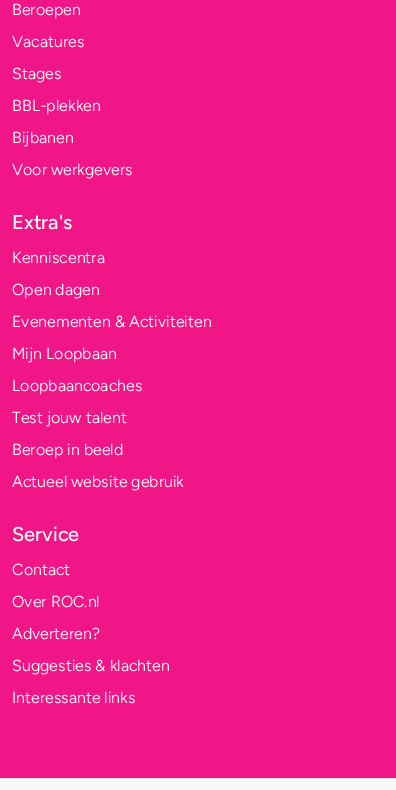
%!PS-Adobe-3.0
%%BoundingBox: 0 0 396 790
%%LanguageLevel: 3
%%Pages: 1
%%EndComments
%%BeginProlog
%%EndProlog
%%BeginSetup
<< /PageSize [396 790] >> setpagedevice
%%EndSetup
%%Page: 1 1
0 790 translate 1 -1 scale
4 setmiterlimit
0.945 0.086 0.533 setrgbcolor
0 0 396 790 rectfill
0.973 0.976 0.98 setrgbcolor
0 779 396 11 rectfill
0.871 0.886 0.902 setrgbcolor
0 778 396 1 rectfill
/Figtree-Light [16 0 0 -16 0 0] selectfont
1 setgray
12 15 moveto (Beroepen) show
12 47 moveto (Vacatures) show
12 79 moveto (Stages) show
12 111 moveto (BBL-plekken) show
12 143 moveto (Bijbanen) show
12 175 moveto (Voor werkgevers) show
/Figtree-Medium [20 0 0 -20 0 0] selectfont
12 229 moveto (Extra's) show
/Figtree-Light [16 0 0 -16 0 0] selectfont
12 263 moveto (Kenniscentra) show
12 295 moveto (Open dagen) show
12 327 moveto (Evenementen & Activiteiten) show
12 359 moveto (Mijn Loopbaan) show
12 391 moveto (Loopbaancoaches) show
12 423 moveto (Test jouw talent) show
12 455 moveto (Beroep in beeld) show
12 487 moveto (Actueel website gebruik) show
/Figtree-Medium [20 0 0 -20 0 0] selectfont
12 541 moveto (Service) show
/Figtree-Light [16 0 0 -16 0 0] selectfont
12 575 moveto (Contact) show
12 607 moveto (Over ROC.nl) show
12 639 moveto (Adverteren?) show
12 671 moveto (Suggesties & klachten) show
12 703 moveto (Interessante links) show
showpage
%%EOF
